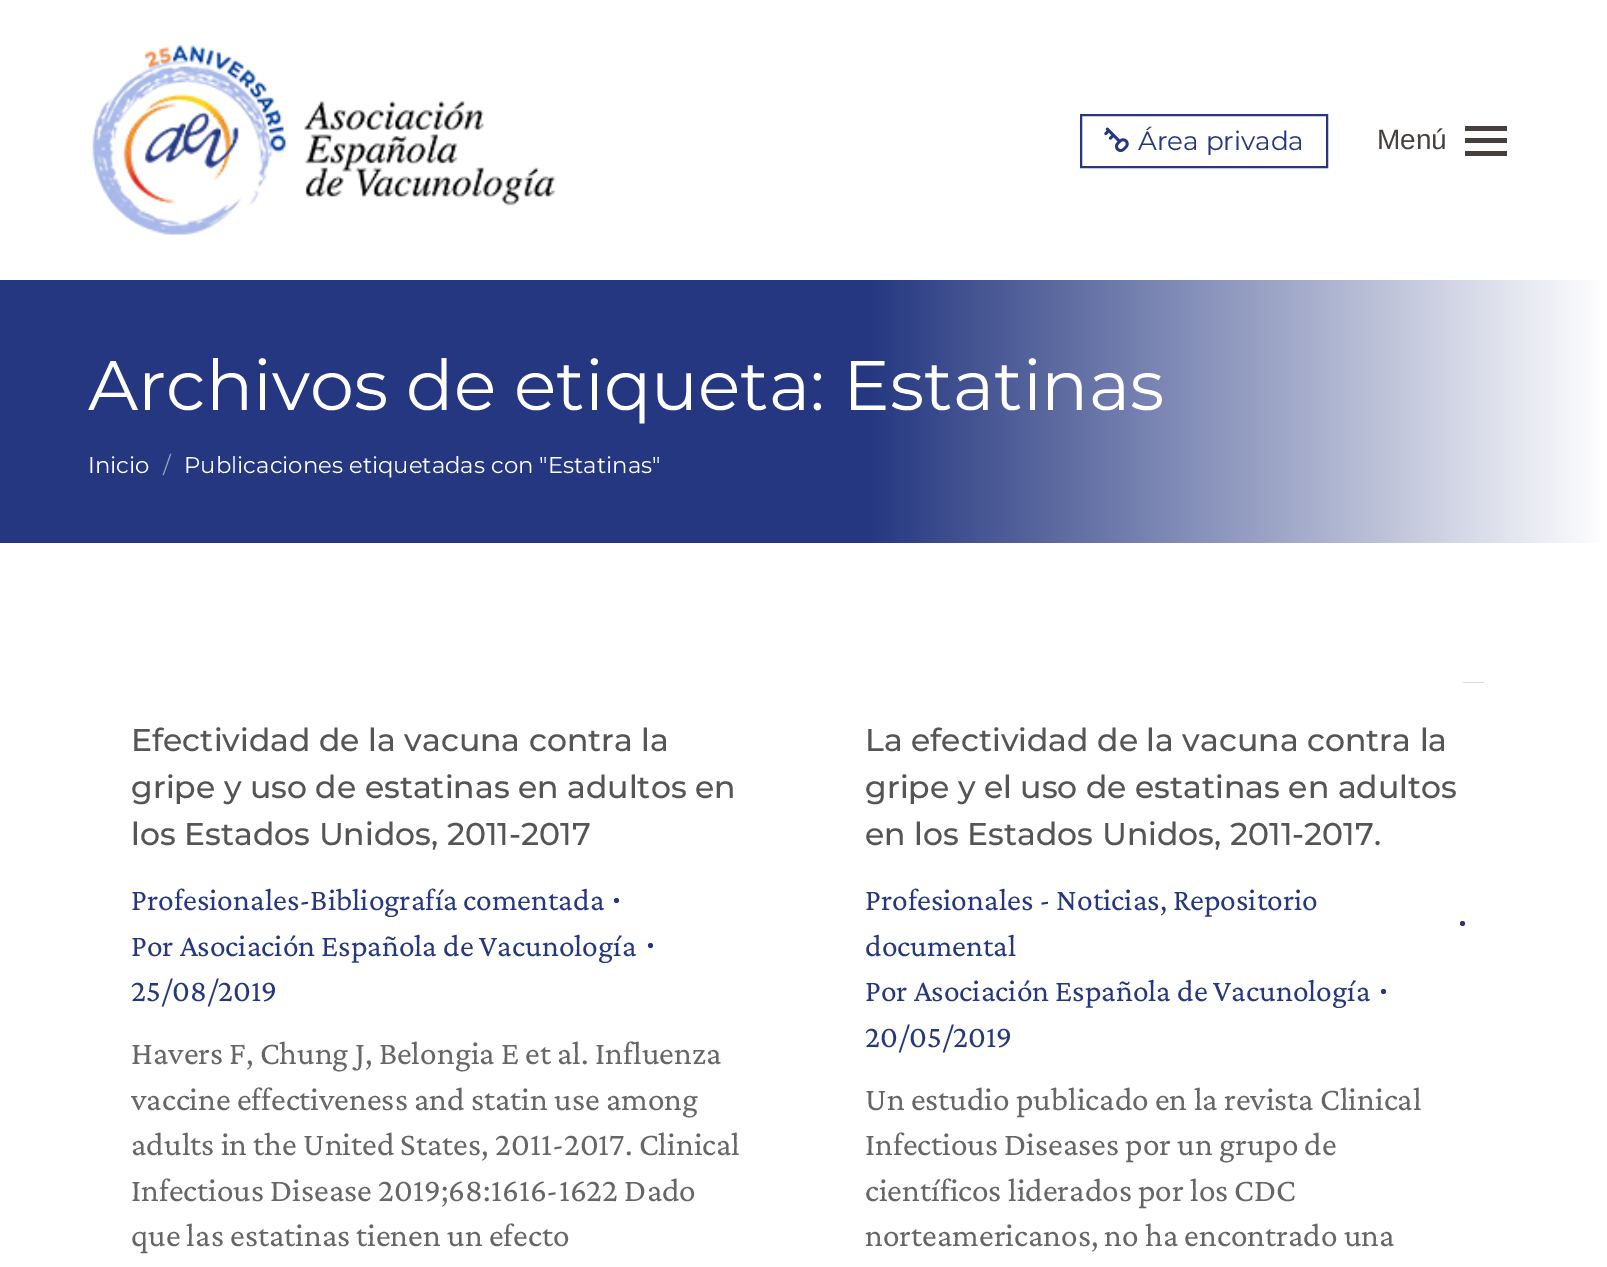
%!PS-Adobe-3.0
%%BoundingBox: 0 0 1607 1267
%%LanguageLevel: 3
%%Pages: 1
%%EndComments
%%BeginProlog
/drawimage { 5 dict begin { /h /w /y /x /name } { exch def } forall
  gsave x y translate w h scale
  w h 8 [w 0 0 h 0 0] name (r) file false 3 colorimage grestore end } def
%%EndProlog
%%BeginSetup
<< /PageSize [1607 1267] >> setpagedevice
%%EndSetup
%%Page: 1 1
0 1267 translate 1 -1 scale
4 setmiterlimit
1 setgray
0 0 1607 1267 rectfill
(images/1.raw) 92 45 464 190 drawimage
0.145 0.216 0.506 setrgbcolor
2 setlinewidth
1081 115 246 52 rectstroke
(images/2.raw) 1104 127 25 25 drawimage
0.275 0.251 0.239 setrgbcolor
1465 126 42 5 rectfill
1465 138 42 5 rectfill
1465 151 42 5 rectfill
gsave newpath 0 280 moveto 1600 280 lineto 1600 543 lineto 0 543 lineto closepath clip newpath
<< /ShadingType 2 /ColorSpace /DeviceRGB /Coords [0 411 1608 411] /Extend [true true] /Function << /FunctionType 3 /Domain [0 1] /Functions [<< /FunctionType 2 /Domain [0 1] /C0 [0.145 0.216 0.506] /C1 [0.145 0.216 0.506] /N 1 >> << /FunctionType 2 /Domain [0 1] /C0 [0.145 0.216 0.506] /C1 [1 1 1] /N 1 >>] /Bounds [0.54] /Encode [0 1 0 1] >> >> shfill grestore
(images/3.raw) 1462 682 23 1 drawimage
0.145 0.216 0.506 setrgbcolor
newpath 616.5 900.5 2.5 0 360 arc closepath fill
newpath 650.5 945.5 2.5 0 360 arc closepath fill
newpath 1462.5 923.5 2.5 0 360 arc closepath fill
newpath 1383.5 991.5 2.5 0 360 arc closepath fill
/Montserrat-Regular [26.25 0 0 -26.25 0 0] selectfont
1138 150 moveto (Área privada) show
/LiberationSans-Regular [28 0 0 -28 0 0] selectfont
0.275 0.251 0.239 setrgbcolor
1377 149 moveto (Menú) show
/Montserrat-Regular [70 0 0 -70 0 0] selectfont
1 setgray
88 410 moveto (Archivos de etiqueta: Estatinas) show
/Montserrat-Regular [22.75 0 0 -22.75 0 0] selectfont
88 473 moveto (Inicio) show
0.573 0.608 0.753 setrgbcolor
163 473 moveto (/) show
1 setgray
184 473 moveto (Publicaciones etiquetadas con "Estatinas") show
/Montserrat-Medium [31.5 0 0 -31.5 0 0] selectfont
0.333 setgray
131 751 moveto (Efectividad de la vacuna contra la) show
131 798 moveto (gripe y uso de estatinas en adultos en) show
131 845 moveto (los Estados Unidos, 2011-2017) show
/CrimsonPro-Regular [31.5 0 0 -31.5 0 0] selectfont
0.145 0.216 0.506 setrgbcolor
131 910 moveto (Profesionales-Bibliografía comentada) show
131 956 moveto (Por Asociación Española de Vacunología) show
131 1001 moveto (25/08/2019) show
/CrimsonPro-Regular [33.25 0 0 -33.25 0 0] selectfont
0.4 setgray
131 1064 moveto (Havers F, Chung J, Belongia E et al. Influenza) show
131 1110 moveto (vaccine effectiveness and statin use among) show
131 1155 moveto (adults in the United States, 2011-2017. Clinical) show
131 1201 moveto (Infectious Disease 2019;68:1616-1622 Dado) show
131 1246 moveto (que las estatinas tienen un efecto) show
/Montserrat-Medium [31.5 0 0 -31.5 0 0] selectfont
0.333 setgray
865 751 moveto (La efectividad de la vacuna contra la) show
865 798 moveto (gripe y el uso de estatinas en adultos) show
865 845 moveto (en los Estados Unidos, 2011-2017.) show
/CrimsonPro-Regular [31.5 0 0 -31.5 0 0] selectfont
0.145 0.216 0.506 setrgbcolor
865 910 moveto (Profesionales - Noticias, Repositorio) show
865 956 moveto (documental) show
865 1001 moveto (Por Asociación Española de Vacunología) show
865 1047 moveto (20/05/2019) show
/CrimsonPro-Regular [33.25 0 0 -33.25 0 0] selectfont
0.4 setgray
865 1110 moveto (Un estudio publicado en la revista Clinical) show
865 1155 moveto (Infectious Diseases por un grupo de) show
865 1201 moveto (científicos liderados por los CDC) show
865 1246 moveto (norteamericanos, no ha encontrado una) show
showpage
%%EOF
